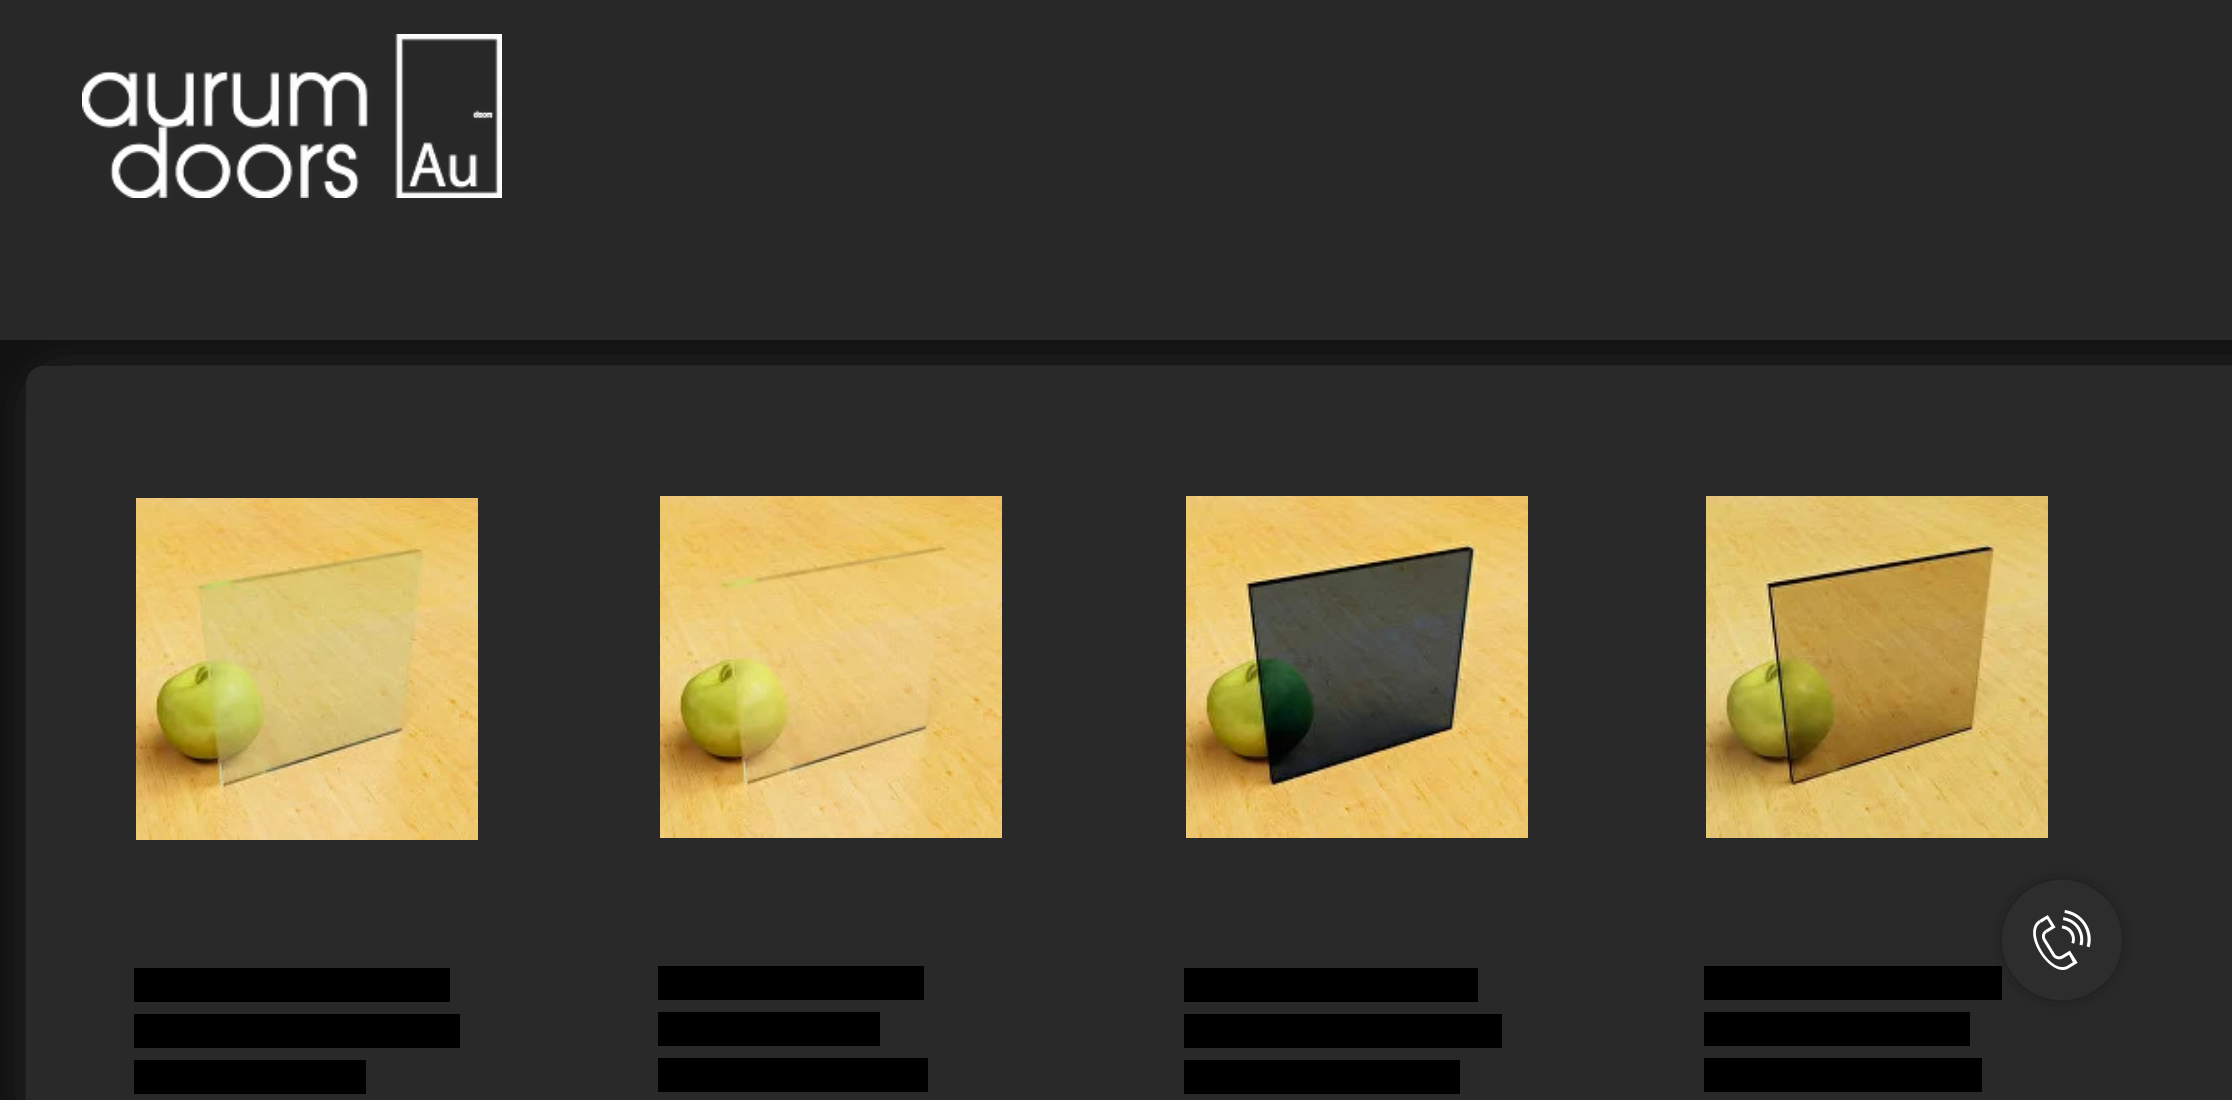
%!PS-Adobe-3.0
%%BoundingBox: 0 0 2232 1100
%%LanguageLevel: 3
%%Pages: 1
%%EndComments
%%BeginProlog
/setalpha { dup .setfillconstantalpha .setstrokeconstantalpha } def
/rrect { 5 dict begin { /r /h /w /y /x } { exch def } forall
  x r add y moveto x w add y 2 copy h add r arct x w add y h add x 1 index r arct
  x y h add x y r arct x y 2 copy exch w add exch r arct closepath end } def
/softshadow { 12 dict begin { /a /b /q /h /w /y /x } { exch def } forall gsave /was 0 def
  9 -2 -9 { dup b mul 4 div /e exch def 1 sub .425 mul 2.718 exch exp 1 add a .99 .min exch div /now exch def
    1 1 now sub 1 was sub div sub setalpha /was now def
    w h .min e 2 mul add 0 gt { x e sub y e sub w e 2 mul add h e 2 mul add
      q e add b .6 mul add w h .min 2 div e add .min 0 .max rrect fill } if } for grestore end } def
/drawimage { 5 dict begin { /h /w /y /x /name } { exch def } forall
  gsave x y translate w h scale
  w h 8 [w 0 0 h 0 0] name (r) file false 3 colorimage grestore end } def
%%EndProlog
%%BeginSetup
<< /PageSize [2232 1100] /PageUsesTransparency true >> setpagedevice
%%EndSetup
%%Page: 1 1
0 .pushpdf14devicefilter
0 1100 translate 1 -1 scale
4 setmiterlimit
0.157 setgray
0 0 2232 1100 rectfill
(images/1.raw) 82 34 420 164 drawimage
0.071 setgray
0 340 2232 760 rectfill
0.439 setgray
40 380 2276 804 24 20 0.5 softshadow
0.161 setgray
newpath 44 366 moveto 2232 366 lineto 2232 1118 lineto 44 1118 lineto 34 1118 26 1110 26 1100 curveto 26 384 lineto 26 374 34 366 44 366 curveto closepath fill
(images/2.raw) 136 498 342 342 drawimage
(images/3.raw) 660 496 342 342 drawimage
(images/4.raw) 1186 496 342 342 drawimage
(images/5.raw) 1706 496 342 342 drawimage
0 setgray
134 968 316 34 rectfill
134 1014 326 34 rectfill
134 1060 232 34 rectfill
658 966 266 34 rectfill
658 1012 222 34 rectfill
658 1058 270 34 rectfill
1184 968 294 34 rectfill
1184 1014 318 34 rectfill
1184 1060 276 34 rectfill
1704 966 298 34 rectfill
1704 1012 266 34 rectfill
1704 1058 278 34 rectfill
2002 880 120 120 60 10 0.3 softshadow
0.18 0.176 0.176 setrgbcolor
newpath 2062 940 60 0 360 arc closepath fill
(images/6.raw) 2033 910 58 60 drawimage
.poppdf14devicefilter showpage
%%EOF
